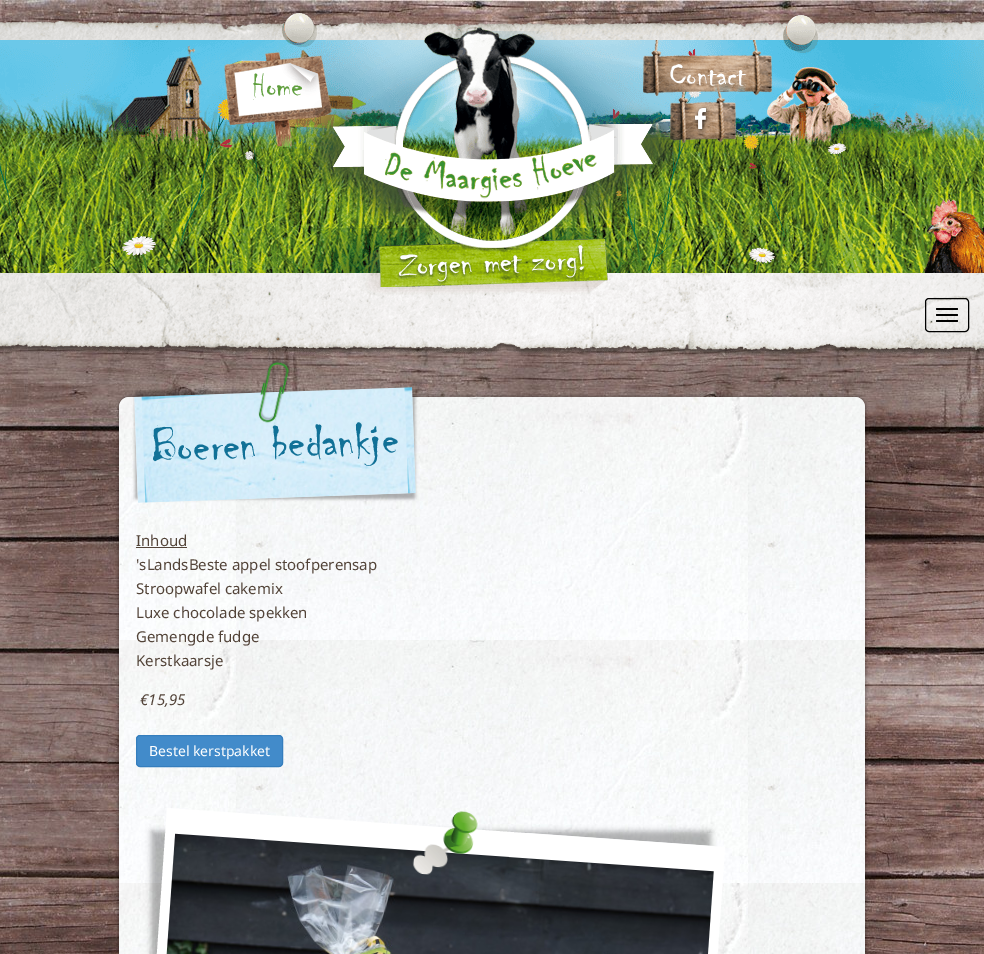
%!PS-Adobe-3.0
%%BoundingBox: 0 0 984 954
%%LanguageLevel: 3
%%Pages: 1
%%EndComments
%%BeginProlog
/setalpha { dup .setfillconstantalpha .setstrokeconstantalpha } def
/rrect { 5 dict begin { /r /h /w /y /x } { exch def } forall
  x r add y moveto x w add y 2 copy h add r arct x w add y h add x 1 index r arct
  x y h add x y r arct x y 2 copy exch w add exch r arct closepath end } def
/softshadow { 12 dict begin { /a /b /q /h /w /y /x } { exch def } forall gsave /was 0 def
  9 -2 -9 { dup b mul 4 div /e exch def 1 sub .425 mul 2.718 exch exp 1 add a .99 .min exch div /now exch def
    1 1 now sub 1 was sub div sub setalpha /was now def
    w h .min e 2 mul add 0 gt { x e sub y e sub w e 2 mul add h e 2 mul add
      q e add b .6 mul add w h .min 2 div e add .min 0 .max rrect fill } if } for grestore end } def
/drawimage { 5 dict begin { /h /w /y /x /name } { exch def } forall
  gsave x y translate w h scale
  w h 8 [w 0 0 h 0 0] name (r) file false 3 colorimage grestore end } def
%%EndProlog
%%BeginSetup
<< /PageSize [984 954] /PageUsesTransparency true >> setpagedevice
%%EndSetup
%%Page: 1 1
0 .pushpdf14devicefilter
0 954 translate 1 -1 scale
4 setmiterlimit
1 setgray
0 0 984 954 rectfill
(images/1.raw) 0 0 984 954 drawimage
(images/2.raw) 0 13 984 344 drawimage
(images/3.raw) 224 52 108 95 drawimage
(images/5.raw) 643 40 129 57 drawimage
(images/6.raw) 670 95 66 48 drawimage
(images/7.raw) 692 105 18 28 drawimage
0 setgray
925.5 298.5 43 33 3.5 rrect stroke
936 308 22 2 1 rrect fill
936 314 22 2 1 rrect fill
936 320 22 2 1 rrect fill
118 396 748 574 11 1.5 0.3 softshadow
0.976 0.984 0.988 setrgbcolor
119 397 746 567 10 rrect fill
(images/8.raw) 119 397 746 557 drawimage
0 setgray
135 391 280 108 0 1.5 0.3 softshadow
(images/9.raw) 134 387 282 116 drawimage
0.325 0.267 0.224 setrgbcolor
136 547 51 1 rectfill
0.259 0.545 0.792 setrgbcolor
136.5 735.5 146 31 3.5 rrect gsave fill grestore
0.208 0.494 0.741 setrgbcolor
stroke
0 setgray
151 831 560 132 0 3 0.3 softshadow
1 setgray
newpath 167 808 moveto 725 847 lineto 695 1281 lineto 137 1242 lineto closepath fill
(images/12.raw) 166 833 548 121 drawimage
(images/11.raw) 412 811 66 64 drawimage
/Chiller-Regular [33 0 0 -33 0 0] selectfont
0.376 0.624 0.243 setrgbcolor
252 96 moveto (Home) show
1 setgray
669 85 moveto (Contact) show
(images/4.raw) 299 26 387 269 drawimage
/Chiller-Regular [50.5 0 0 -50.5 0 0] selectfont
0.067 0.443 0.592 setrgbcolor
gsave 152 462 translate -2 rotate 0 0 moveto (Boeren bedankje) show grestore
(images/10.raw) 258 359 32 65 drawimage
/NotoSans-Regular [15 0 0 -15 0 0] selectfont
0.325 0.267 0.224 setrgbcolor
136 546 moveto (Inhoud) show
136 570 moveto ('sLandsBeste appel stoofperensap) show
136 594 moveto (Stroopwafel cakemix) show
136 618 moveto (Luxe chocolade spekken) show
136 642 moveto (Gemengde fudge) show
136 666 moveto (Kerstkaarsje) show
/NotoSans-Italic [15 0 0 -15 0 0] selectfont
140 705 moveto (€15,95) show
/NotoSans-Regular [14 0 0 -14 0 0] selectfont
1 setgray
149 756 moveto (Bestel kerstpakket) show
.poppdf14devicefilter showpage
%%EOF
